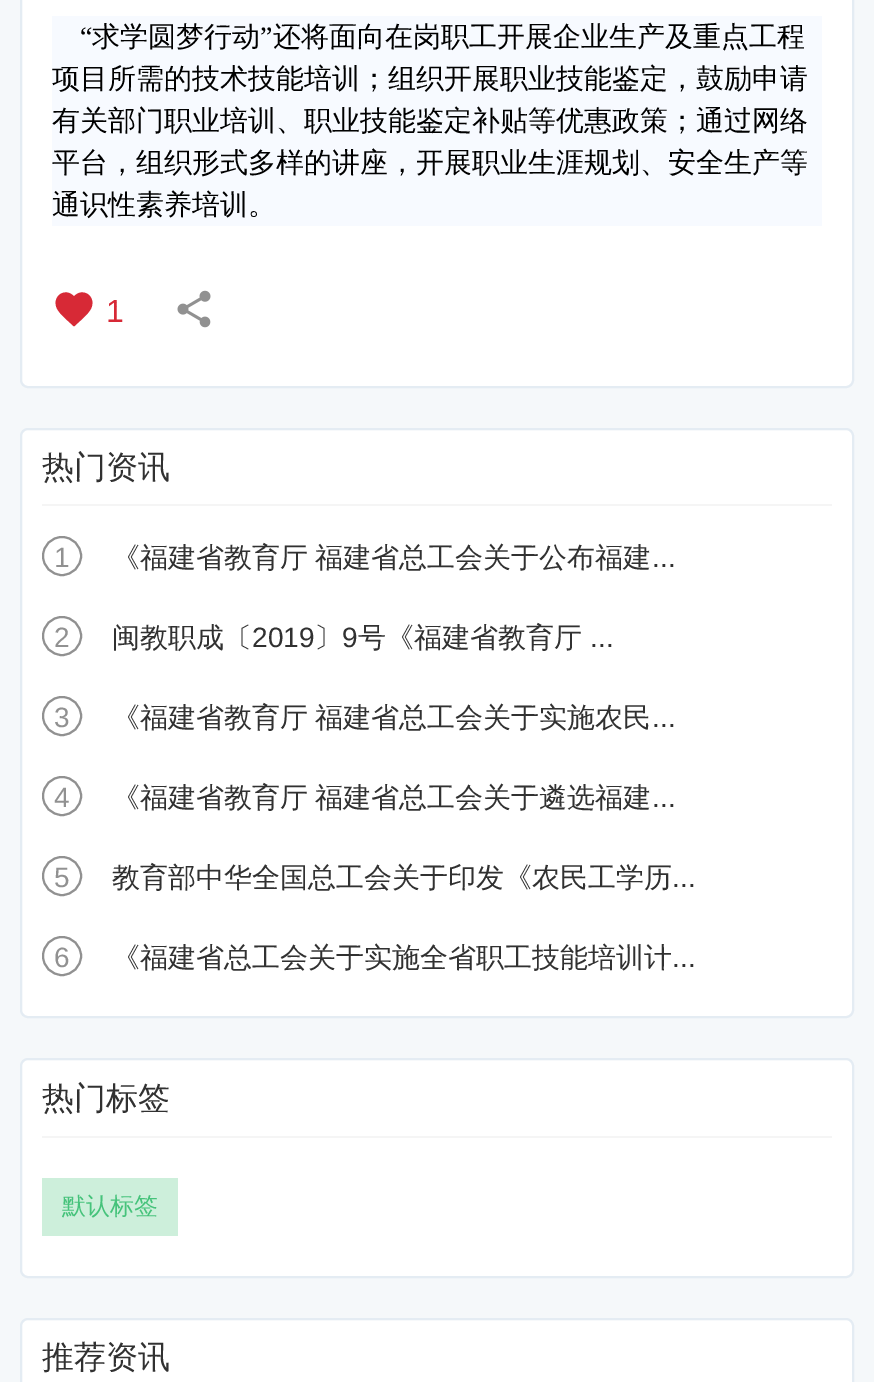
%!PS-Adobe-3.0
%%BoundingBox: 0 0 874 1382
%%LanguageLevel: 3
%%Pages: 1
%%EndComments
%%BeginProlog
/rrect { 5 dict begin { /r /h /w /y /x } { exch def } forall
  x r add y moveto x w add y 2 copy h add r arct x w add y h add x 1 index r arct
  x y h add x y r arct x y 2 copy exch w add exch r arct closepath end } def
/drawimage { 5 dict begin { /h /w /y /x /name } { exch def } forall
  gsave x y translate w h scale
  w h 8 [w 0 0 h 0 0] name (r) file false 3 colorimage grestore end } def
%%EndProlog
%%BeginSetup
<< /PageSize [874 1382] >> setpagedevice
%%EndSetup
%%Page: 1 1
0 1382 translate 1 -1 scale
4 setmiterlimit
0.961 0.973 0.98 setrgbcolor
0 0 874 1382 rectfill
1 setgray
21 -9 832 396 7 rrect gsave fill grestore
0.894 0.925 0.953 setrgbcolor
2 setlinewidth
stroke
0.969 0.98 1 setrgbcolor
52 16 770 210 rectfill
0.843 0.161 0.212 setrgbcolor
newpath 74 326.5 moveto 69 321.5 59 314 56.5 307.5 curveto 52 295.5 66 287 74 296.5 curveto 82 287 96 295.5 91.5 307.5 curveto 89 314 79 321.5 74 326.5 curveto closepath fill
(images/1.raw) 177 290 34 38 drawimage
1 setgray
21 429 832 588 7 rrect gsave fill grestore
0.894 0.925 0.953 setrgbcolor
stroke
0.961 setgray
42 504 790 2 rectfill
0.569 setgray
newpath 62 556 19 0 360 arc closepath stroke
newpath 62 636 19 0 360 arc closepath stroke
newpath 62 716 19 0 360 arc closepath stroke
newpath 62 796 19 0 360 arc closepath stroke
newpath 62 876 19 0 360 arc closepath stroke
newpath 62 956 19 0 360 arc closepath stroke
1 setgray
21 1059 832 218 7 rrect gsave fill grestore
0.894 0.925 0.953 setrgbcolor
stroke
0.961 setgray
42 1136 790 2 rectfill
0.804 0.937 0.859 setrgbcolor
42 1178 136 58 rectfill
1 setgray
21 1319 832 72 7 rrect gsave fill grestore
0.894 0.925 0.953 setrgbcolor
stroke
/LiberationSerif-Regular [28 0 0 -28 0 0] selectfont
0 setgray
80 46 moveto (“) show
/WenQuanYiZenHei-Medium [28 0 0 -28 0 0] selectfont
92 46 moveto (求学圆梦行动) show
/LiberationSerif-Regular [28 0 0 -28 0 0] selectfont
260 46 moveto (”) show
/WenQuanYiZenHei-Medium [28 0 0 -28 0 0] selectfont
273 46 moveto (还将面向在岗职工开展企业生产及重点工程) show
52 88 moveto (项目所需的技术技能培训；组织开展职业技能鉴定，鼓励申请) show
52 130 moveto (有关部门职业培训、职业技能鉴定补贴等优惠政策；通过网络) show
52 172 moveto (平台，组织形式多样的讲座，开展职业生涯规划、安全生产等) show
52 214 moveto (通识性素养培训。) show
/LiberationSans-Regular [32 0 0 -32 0 0] selectfont
0.843 0.161 0.212 setrgbcolor
106 322 moveto (1) show
/WenQuanYiZenHei-Medium [32 0 0 -32 0 0] selectfont
0.192 setgray
42 478 moveto (热门资讯) show
/LiberationSans-Regular [28 0 0 -28 0 0] selectfont
0.569 setgray
54 567 moveto (1) show
/WenQuanYiZenHei-Medium [28 0 0 -28 0 0] selectfont
0.192 setgray
112 567 moveto -1 0 32 (《福建省教育厅 福建省总工会关于公布福建) widthshow
/LiberationSans-Regular [28 0 0 -28 0 0] selectfont
652 567 moveto (...) show
0.569 setgray
54 647 moveto (2) show
/WenQuanYiZenHei-Medium [28 0 0 -28 0 0] selectfont
0.192 setgray
112 647 moveto (闽教职成〔) show
/LiberationSans-Regular [28 0 0 -28 0 0] selectfont
252 647 moveto (2019) show
/WenQuanYiZenHei-Medium [28 0 0 -28 0 0] selectfont
314 647 moveto (〕) show
/LiberationSans-Regular [28 0 0 -28 0 0] selectfont
342 647 moveto (9) show
/WenQuanYiZenHei-Medium [28 0 0 -28 0 0] selectfont
358 647 moveto (号《福建省教育厅) show
/LiberationSans-Regular [28 0 0 -28 0 0] selectfont
590 647 moveto (...) show
0.569 setgray
54 727 moveto (3) show
/WenQuanYiZenHei-Medium [28 0 0 -28 0 0] selectfont
0.192 setgray
112 727 moveto -1 0 32 (《福建省教育厅 福建省总工会关于实施农民) widthshow
/LiberationSans-Regular [28 0 0 -28 0 0] selectfont
652 727 moveto (...) show
0.569 setgray
54 807 moveto (4) show
/WenQuanYiZenHei-Medium [28 0 0 -28 0 0] selectfont
0.192 setgray
112 807 moveto -1 0 32 (《福建省教育厅 福建省总工会关于遴选福建) widthshow
/LiberationSans-Regular [28 0 0 -28 0 0] selectfont
652 807 moveto (...) show
0.569 setgray
54 887 moveto (5) show
/WenQuanYiZenHei-Medium [28 0 0 -28 0 0] selectfont
0.192 setgray
112 887 moveto (教育部中华全国总工会关于印发《农民工学历) show
/LiberationSans-Regular [28 0 0 -28 0 0] selectfont
672 887 moveto (...) show
0.569 setgray
54 967 moveto (6) show
/WenQuanYiZenHei-Medium [28 0 0 -28 0 0] selectfont
0.192 setgray
112 967 moveto (《福建省总工会关于实施全省职工技能培训计) show
/LiberationSans-Regular [28 0 0 -28 0 0] selectfont
672 967 moveto (...) show
/WenQuanYiZenHei-Medium [32 0 0 -32 0 0] selectfont
42 1109 moveto (热门标签) show
/WenQuanYiZenHei-Medium [24 0 0 -24 0 0] selectfont
0.275 0.765 0.482 setrgbcolor
62 1214 moveto (默认标签) show
/WenQuanYiZenHei-Medium [32 0 0 -32 0 0] selectfont
0.192 setgray
42 1368 moveto (推荐资讯) show
showpage
%%EOF
